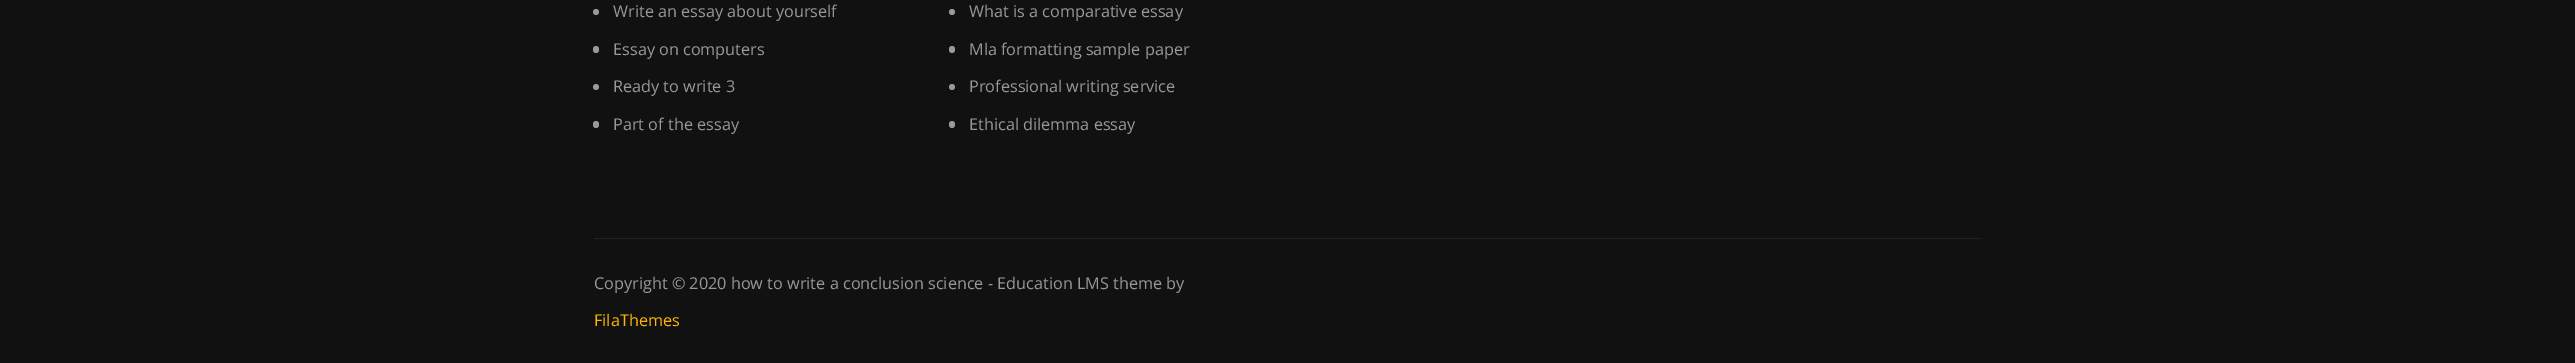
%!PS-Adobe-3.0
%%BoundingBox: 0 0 2575 363
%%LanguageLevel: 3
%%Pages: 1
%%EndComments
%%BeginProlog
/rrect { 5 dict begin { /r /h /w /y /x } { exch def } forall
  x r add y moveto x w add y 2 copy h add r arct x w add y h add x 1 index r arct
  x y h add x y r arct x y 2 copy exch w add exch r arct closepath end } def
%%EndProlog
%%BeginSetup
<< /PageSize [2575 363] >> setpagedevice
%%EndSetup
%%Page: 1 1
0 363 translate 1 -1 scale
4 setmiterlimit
0.067 setgray
0 0 2575 363 rectfill
0.6 setgray
newpath 596 12 3 0 360 arc closepath fill
593 46 6 7 3 rrect fill
newpath 596 87 3 0 360 arc closepath fill
593 121 6 7 3 rrect fill
newpath 952 12 3 0 360 arc closepath fill
949 46 6 7 3 rrect fill
newpath 952 87 3 0 360 arc closepath fill
949 121 6 7 3 rrect fill
0.133 setgray
594 238 1387 1 rectfill
/OpenSans-Regular [16.25 0 0 -16.25 0 0] selectfont
0.6 setgray
613 17 moveto (Write an essay about yourself) show
613 55 moveto (Essay on computers) show
613 92 moveto (Ready to write 3) show
613 130 moveto (Part of the essay) show
969 17 moveto (What is a comparative essay) show
969 55 moveto (Mla formatting sample paper) show
969 92 moveto (Professional writing service) show
969 130 moveto (Ethical dilemma essay) show
594 289 moveto (Copyright © 2020 how to write a conclusion science - Education LMS theme by) show
1 0.714 0.024 setrgbcolor
594 326 moveto (FilaThemes) show
showpage
%%EOF
